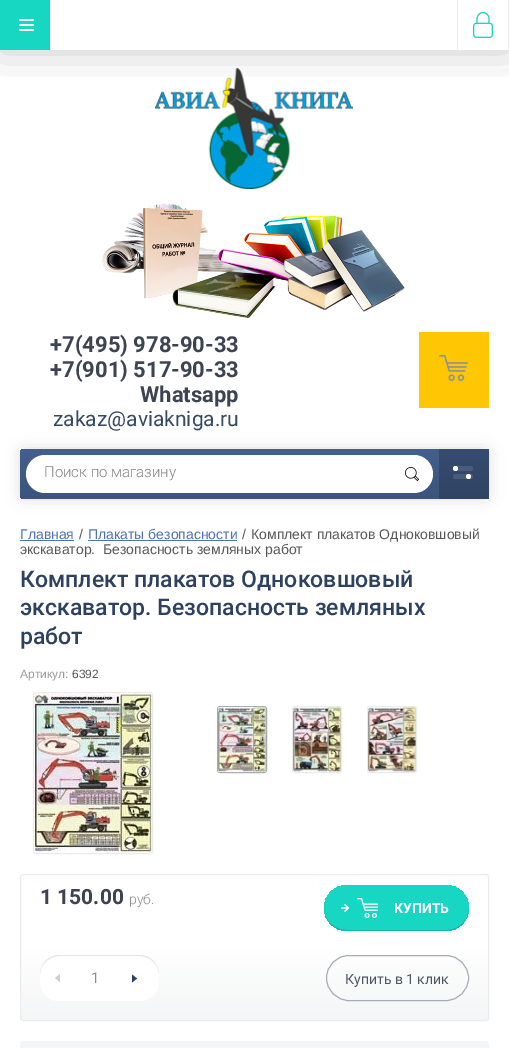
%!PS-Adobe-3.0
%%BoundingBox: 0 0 509 1048
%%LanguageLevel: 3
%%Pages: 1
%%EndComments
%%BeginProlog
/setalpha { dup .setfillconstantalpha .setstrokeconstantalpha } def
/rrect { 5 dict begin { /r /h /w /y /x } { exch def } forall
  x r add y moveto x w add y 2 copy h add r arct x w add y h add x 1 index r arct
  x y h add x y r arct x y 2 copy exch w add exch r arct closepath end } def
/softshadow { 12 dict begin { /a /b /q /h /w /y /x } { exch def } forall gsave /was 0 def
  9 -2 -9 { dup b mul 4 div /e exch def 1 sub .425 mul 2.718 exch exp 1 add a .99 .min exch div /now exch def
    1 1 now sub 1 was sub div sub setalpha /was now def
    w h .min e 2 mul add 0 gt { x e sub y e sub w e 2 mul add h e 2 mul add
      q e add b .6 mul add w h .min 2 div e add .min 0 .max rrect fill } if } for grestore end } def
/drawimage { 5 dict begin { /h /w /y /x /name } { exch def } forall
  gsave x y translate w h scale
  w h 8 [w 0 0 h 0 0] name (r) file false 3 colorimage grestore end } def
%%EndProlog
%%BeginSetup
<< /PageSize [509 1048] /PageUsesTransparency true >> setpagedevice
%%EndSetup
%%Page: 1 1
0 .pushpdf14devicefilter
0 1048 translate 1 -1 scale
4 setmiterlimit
1 setgray
0 0 509 1048 rectfill
(images/3.raw) 155 68 198 121 drawimage
gsave
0 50 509 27 rectclip
0 setgray
0 1 509 50 0 20 0.2 softshadow
grestore
0.09 0.839 0.761 setrgbcolor
0 0 50 50 rectfill
(images/1.raw) 19 19 15 12 drawimage
0.925 setgray
50 0 1 50 rectfill
457 0 1 50 rectfill
508 0 1 50 rectfill
(images/2.raw) 473 12 20 26 drawimage
(images/4.raw) 102 203 303 115 drawimage
1 0.78 0.012 setrgbcolor
419 332 70 76 rectfill
(images/5.raw) 439 355 29 26 drawimage
0 setgray
20 449 469 50 4 7.5 0.13 softshadow
gsave newpath 24 449 moveto 486 449 lineto 487.5 449 489 450.5 489 452 curveto 489 496 lineto 489 497.5 487.5 499 486 499 curveto 24 499 lineto 22 499 20 497 20 495 curveto 20 453 lineto 20 451 22 449 24 449 curveto closepath clip newpath
<< /ShadingType 2 /ColorSpace /DeviceRGB /Coords [255 499 255 449] /Extend [true true] /Function << /FunctionType 2 /Domain [0 1] /C0 [0.235 0.329 0.49] /C1 [0.263 0.373 0.549] /N 1 >> >> shfill grestore
1 setgray
26 455 407 38 19 rrect fill
(images/6.raw) 405 467 14 14 drawimage
0.2 setalpha
0 setgray
439 449 50 50 rectfill
1 setalpha
0.286 0.361 0.482 setrgbcolor
453 466 20 5 2.5 rrect fill
1 setgray
newpath 455.5 468.5 2.5 0 360 arc closepath fill
0.282 0.357 0.475 setrgbcolor
453 474 20 5 2.5 rrect fill
1 setgray
newpath 468.5 476.5 2.5 0 360 arc closepath fill
0.294 0.451 0.71 setrgbcolor
20 540 54 1 rectfill
88 540 149 1 rectfill
0.914 0.922 0.933 setrgbcolor
33.5 692.5 119 161 2.5 rrect stroke
(images/7.raw) 34 693 118 160 drawimage
0.655 0.678 0.714 setrgbcolor
217.5 706.5 49 66 2.5 rrect stroke
(images/8.raw) 218 707 48 65 drawimage
0.914 0.922 0.933 setrgbcolor
292.5 706.5 49 66 2.5 rrect stroke
(images/9.raw) 293 707 48 65 drawimage
367.5 706.5 49 66 2.5 rrect stroke
(images/10.raw) 368 707 48 65 drawimage
gsave
20 874 469 147 3 rrect clip newpath
gsave newpath 20 875 moveto 489 875 lineto 489 1020 lineto 20 1020 lineto closepath clip newpath
<< /ShadingType 2 /ColorSpace /DeviceRGB /Coords [255 1020 255 875] /Extend [true true] /Function << /FunctionType 3 /Domain [0 1] /Functions [<< /FunctionType 2 /Domain [0 1] /C0 [0.957 0.961 0.965] /C1 [1 1 1] /N 1 >> << /FunctionType 2 /Domain [0 1] /C0 [1 1 1] /C1 [1 1 1] /N 1 >>] /Bounds [0.5] /Encode [0 1 0 1] >> >> shfill grestore
grestore
0.925 setgray
20.5 874.5 468 146 2.5 rrect stroke
gsave 324 885 145 46 23 rrect clip newpath
<< /ShadingType 2 /ColorSpace /DeviceRGB /Coords [397 931 397 885] /Extend [true true] /Function << /FunctionType 2 /Domain [0 1] /C0 [0.09 0.839 0.761] /C1 [0.094 0.843 0.769] /N 1 >> >> shfill grestore
0.14 setalpha
0 setgray
newpath 324 908 moveto 324 921 334 931 347 931 curveto 446 931 lineto 459 931 469 921 469 908 curveto 469 920 459 930 446 930 curveto 347 930 lineto 334 930 324 920 324 908 curveto closepath fill
1 setalpha
(images/11.raw) 341 904 8 8 drawimage
(images/12.raw) 357 898 21 20 drawimage
1 setgray
40 955 119 46 19 rrect fill
0.89 0.894 0.898 setrgbcolor
newpath 59 956 moveto 140 956 lineto 150 956 159 965 159 975 curveto 159 974 lineto 159 964 150 955 140 955 curveto 59 955 lineto 49 955 40 964 40 974 curveto 40 975 lineto 40 965 49 956 59 956 curveto closepath fill
0.788 0.8 0.82 setrgbcolor
newpath 60 974 moveto 60 982 lineto 55 978 lineto closepath fill
0.176 0.255 0.376 setrgbcolor
newpath 132 982.5 moveto 132 974.5 lineto 137 978.5 lineto closepath fill
0.655 0.678 0.714 setrgbcolor
326.5 955.5 142 45 22.5 rrect stroke
0.957 0.961 0.965 setrgbcolor
20 1041 469 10 3 rrect fill
/Roboto-Bold [22 0 0 -22 0 0] selectfont
0.235 0.267 0.322 setrgbcolor
50 352 moveto (+7\(495\) 978-90-33) show
50 377 moveto (+7\(901\) 517-90-33) show
140 402 moveto (Whatsapp) show
/Roboto-Regular [21 0 0 -21 0 0] selectfont
0.208 0.294 0.388 setrgbcolor
53 426 moveto (zakaz@aviakniga.ru) show
/Roboto-Light [15 0 0 -15 0 0] selectfont
0.506 setgray
44 477 moveto (Поиск по магазину) show
/LiberationSans-Regular [14 0 0 -14 0 0] selectfont
0.294 0.451 0.71 setrgbcolor
20 539 moveto (Главная) show
0.345 setgray
79 539 moveto (/) show
0.294 0.451 0.71 setrgbcolor
88 539 moveto (Плакаты безопасности) show
0.345 setgray
242 539 moveto (/) show
251 539 moveto (Комплект плакатов Одноковшовый) show
20 554 moveto (экскаватор.  Безопасность земляных работ) show
/Roboto-Medium [23 0 0 -23 0 0] selectfont
0.176 0.255 0.376 setrgbcolor
20 587 moveto (Комплект плакатов Одноковшовый) show
20 615 moveto (экскаватор. Безопасность земляных) show
20 644 moveto (работ) show
/LiberationSans-Regular [12 0 0 -12 0 0] selectfont
0.6 setgray
20 678 moveto (Артикул:) show
0.345 setgray
72 678 moveto (6392) show
/Roboto-Bold [21 0 0 -21 0 0] selectfont
0.235 0.267 0.322 setrgbcolor
40 904 moveto (1 150.00) show
/Roboto-Light [14 0 0 -14 0 0] selectfont
0.549 0.545 0.545 setrgbcolor
129 904 moveto (руб.) show
/Roboto-Bold [14 0 0 -14 0 0] selectfont
1 setgray
394 913 moveto (КУПИТЬ) show
/Roboto-Regular [15 0 0 -15 0 0] selectfont
0.549 0.545 0.545 setrgbcolor
91 983 moveto (1) show
/Roboto-Regular [14 0 0 -14 0 0] selectfont
0.298 0.337 0.404 setrgbcolor
345 984 moveto (Купить в 1 клик) show
.poppdf14devicefilter showpage
%%EOF
